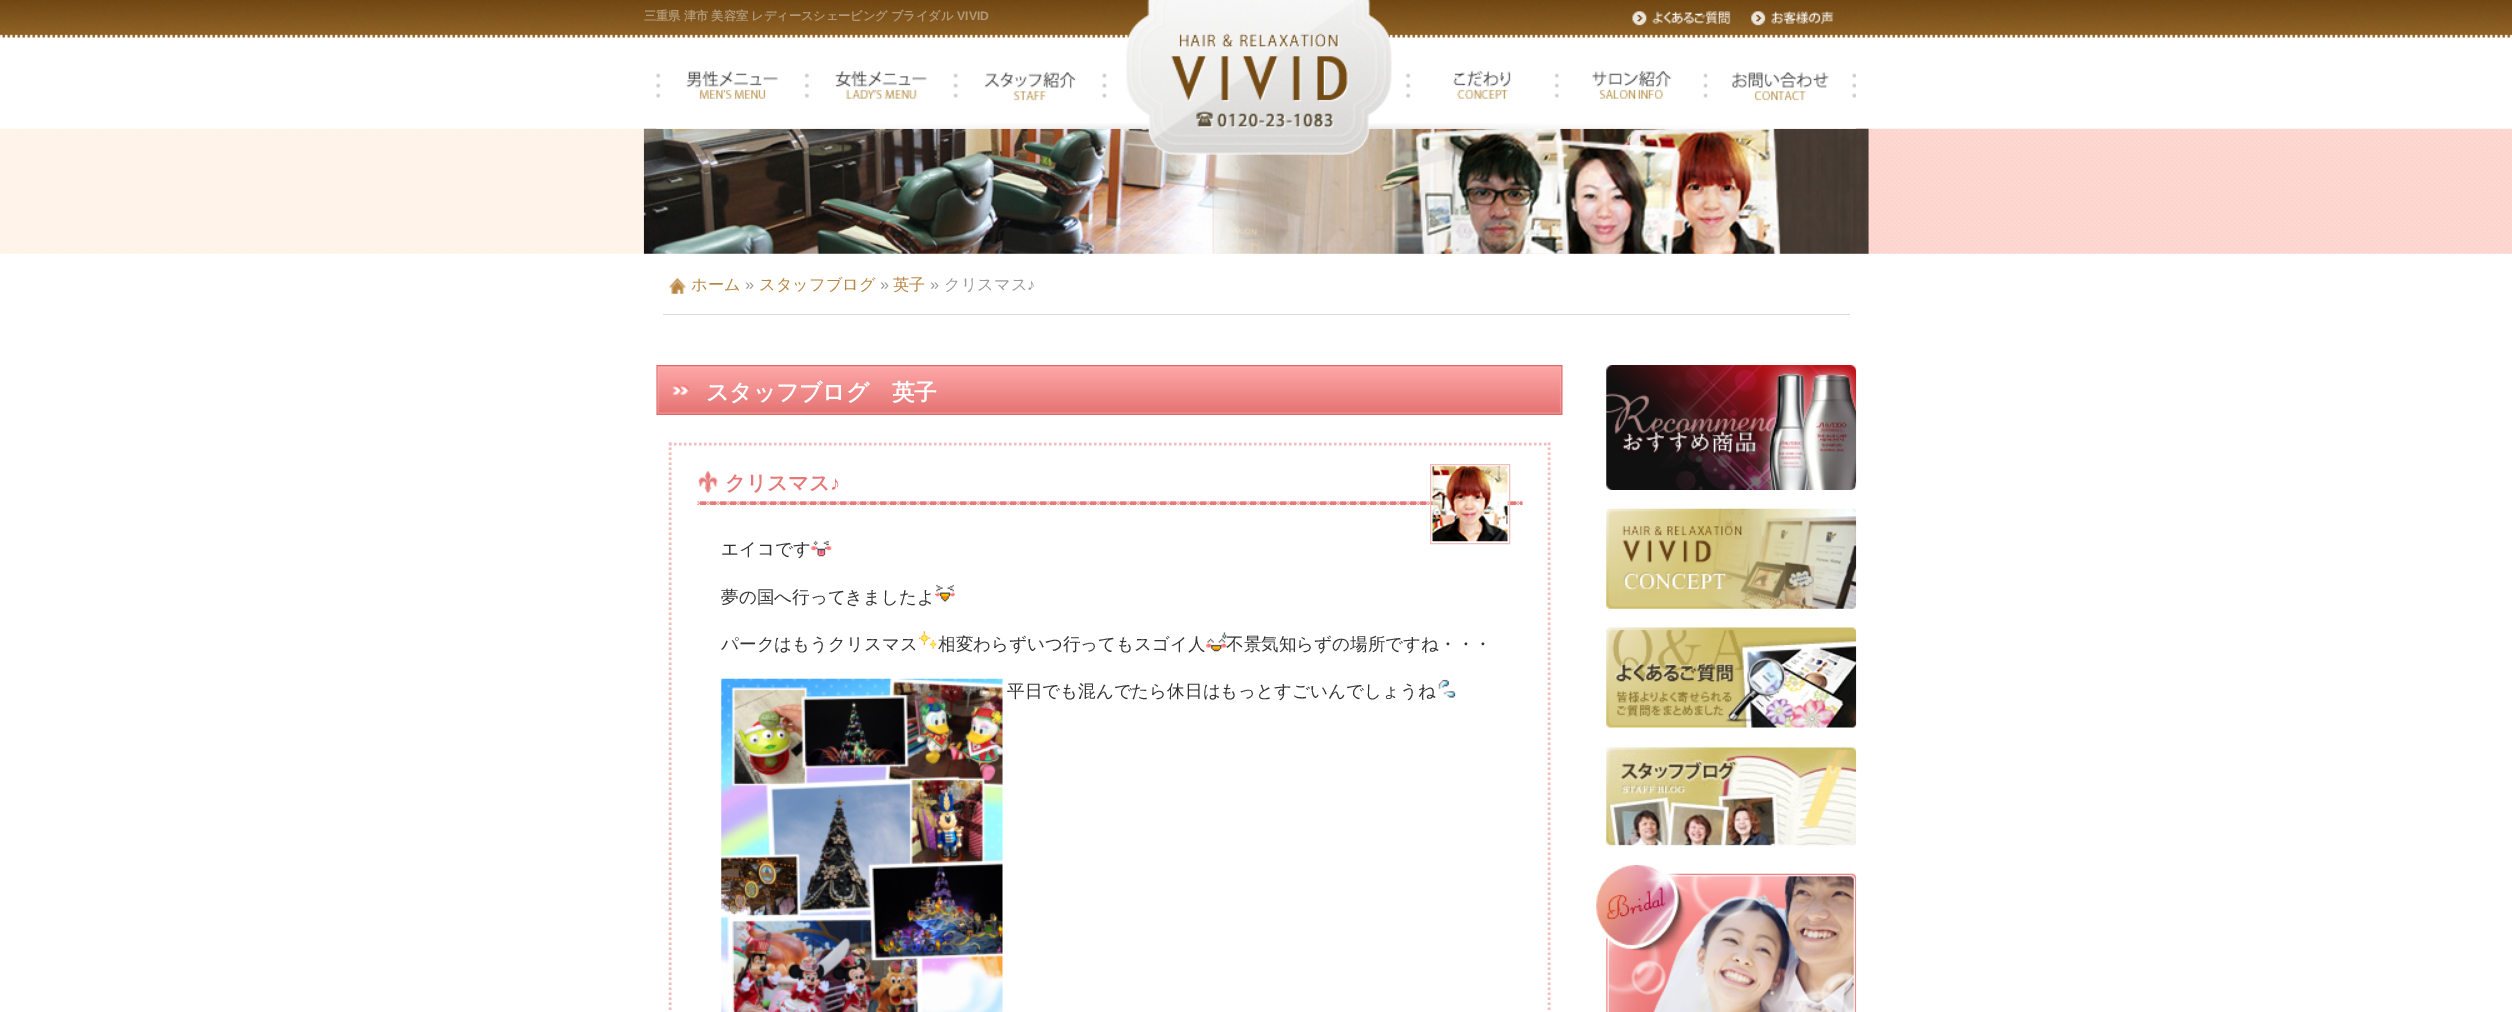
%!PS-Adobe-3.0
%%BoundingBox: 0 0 2512 1012
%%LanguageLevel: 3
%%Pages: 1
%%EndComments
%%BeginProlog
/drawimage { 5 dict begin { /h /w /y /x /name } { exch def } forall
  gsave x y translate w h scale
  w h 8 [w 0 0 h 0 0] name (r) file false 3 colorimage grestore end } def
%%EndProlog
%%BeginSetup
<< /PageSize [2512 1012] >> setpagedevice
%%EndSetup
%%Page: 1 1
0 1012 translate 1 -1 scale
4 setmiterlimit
1 setgray
0 0 2512 1012 rectfill
(images/1.raw) 0 128 2512 126 drawimage
(images/2.raw) 0 0 2512 38 drawimage
(images/13.raw) 643 128 1226 126 drawimage
(images/6.raw) 656 123 1201 6 drawimage
(images/3.raw) 1126 0 266 155 drawimage
(images/4.raw) 1632 8 99 22 drawimage
(images/5.raw) 1750 8 100 22 drawimage
(images/7.raw) 656 71 122 28 drawimage
(images/8.raw) 805 71 122 28 drawimage
(images/9.raw) 953 71 154 30 drawimage
(images/10.raw) 1406 70 153 29 drawimage
(images/11.raw) 1558 70 150 29 drawimage
(images/12.raw) 1707 72 149 29 drawimage
0.859 setgray
663 314 1187 1 rectfill
(images/14.raw) 668 277 19 17 drawimage
(images/15.raw) 656 365 907 50 drawimage
0.953 0.741 0.737 setrgbcolor
2.5 setlinewidth
[2.5 2.5] 0 setdash
newpath 669 444 moveto 1550 444 lineto stroke
newpath 1549 442.5 moveto 1549 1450 lineto stroke
newpath 670 442.5 moveto 670 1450 lineto stroke
(images/16.raw) 697 471 826 34 drawimage
1 setlinewidth
[] 0 setdash
1430.5 464.5 79 79 rectstroke
(images/17.raw) 1432 466 76 76 drawimage
(images/18.raw) 811 541 21 16 drawimage
(images/19.raw) 935 584 20 18 drawimage
(images/20.raw) 918 631 19 18 drawimage
(images/21.raw) 1206 632 21 20 drawimage
(images/22.raw) 721 678 282 334 drawimage
(images/23.raw) 1438 679 18 19 drawimage
(images/24.raw) 1606 365 251 125 drawimage
(images/25.raw) 1606 508 251 101 drawimage
(images/26.raw) 1606 627 251 101 drawimage
(images/27.raw) 1606 746 251 101 drawimage
(images/28.raw) 1596 865 261 147 drawimage
/WenQuanYiZenHei-Bold [12.2 0 0 -12.2 0 0] selectfont
0.698 0.6 0.471 setrgbcolor
644 20 moveto -0.5 0 32 (三重県 津市 美容室 レディースシェービング ブライダル) widthshow
/LiberationSans-Bold [12.2 0 0 -12.2 0 0] selectfont
957 20 moveto (VIVID) show
/WenQuanYiZenHei-Medium [16.25 0 0 -16.25 0 0] selectfont
0.722 0.518 0.247 setrgbcolor
691 290 moveto (ホーム) show
/LiberationSans-Regular [16.25 0 0 -16.25 0 0] selectfont
0.6 setgray
745 290 moveto (») show
/WenQuanYiZenHei-Medium [16.25 0 0 -16.25 0 0] selectfont
0.722 0.518 0.247 setrgbcolor
759 290 moveto (スタッフブログ) show
/LiberationSans-Regular [16.25 0 0 -16.25 0 0] selectfont
0.6 setgray
880 290 moveto (») show
/WenQuanYiZenHei-Medium [16.25 0 0 -16.25 0 0] selectfont
0.722 0.518 0.247 setrgbcolor
893 290 moveto (英子) show
/LiberationSans-Regular [16.25 0 0 -16.25 0 0] selectfont
0.6 setgray
930 290 moveto (») show
/WenQuanYiZenHei-Medium [16.25 0 0 -16.25 0 0] selectfont
944 290 moveto (クリスマス) show
/LiberationSans-Regular [16.25 0 0 -16.25 0 0] selectfont
1027 290 moveto (♪) show
/WenQuanYiZenHei-Bold [22.75 0 0 -22.75 0 0] selectfont
1 setgray
706 400 moveto (スタッフブログ　英子) show
/WenQuanYiZenHei-Bold [20.5 0 0 -20.5 0 0] selectfont
0.902 0.471 0.467 setrgbcolor
725 490 moveto (クリスマス) show
/LiberationSans-Bold [20.5 0 0 -20.5 0 0] selectfont
830 490 moveto (♪) show
/WenQuanYiZenHei-Medium [17.55 0 0 -17.55 0 0] selectfont
0.2 setgray
721 555 moveto (エイコです) show
721 603 moveto (夢の国へ行ってきましたよ) show
721 650 moveto (パークはもうクリスマス) show
938 650 moveto (相変わらずいつ行ってもスゴイ人) show
1226 650 moveto (不景気知らずの場所ですね・・・) show
1007 697 moveto (平日でも混んでたら休日はもっとすごいんでしょうね) show
showpage
%%EOF
